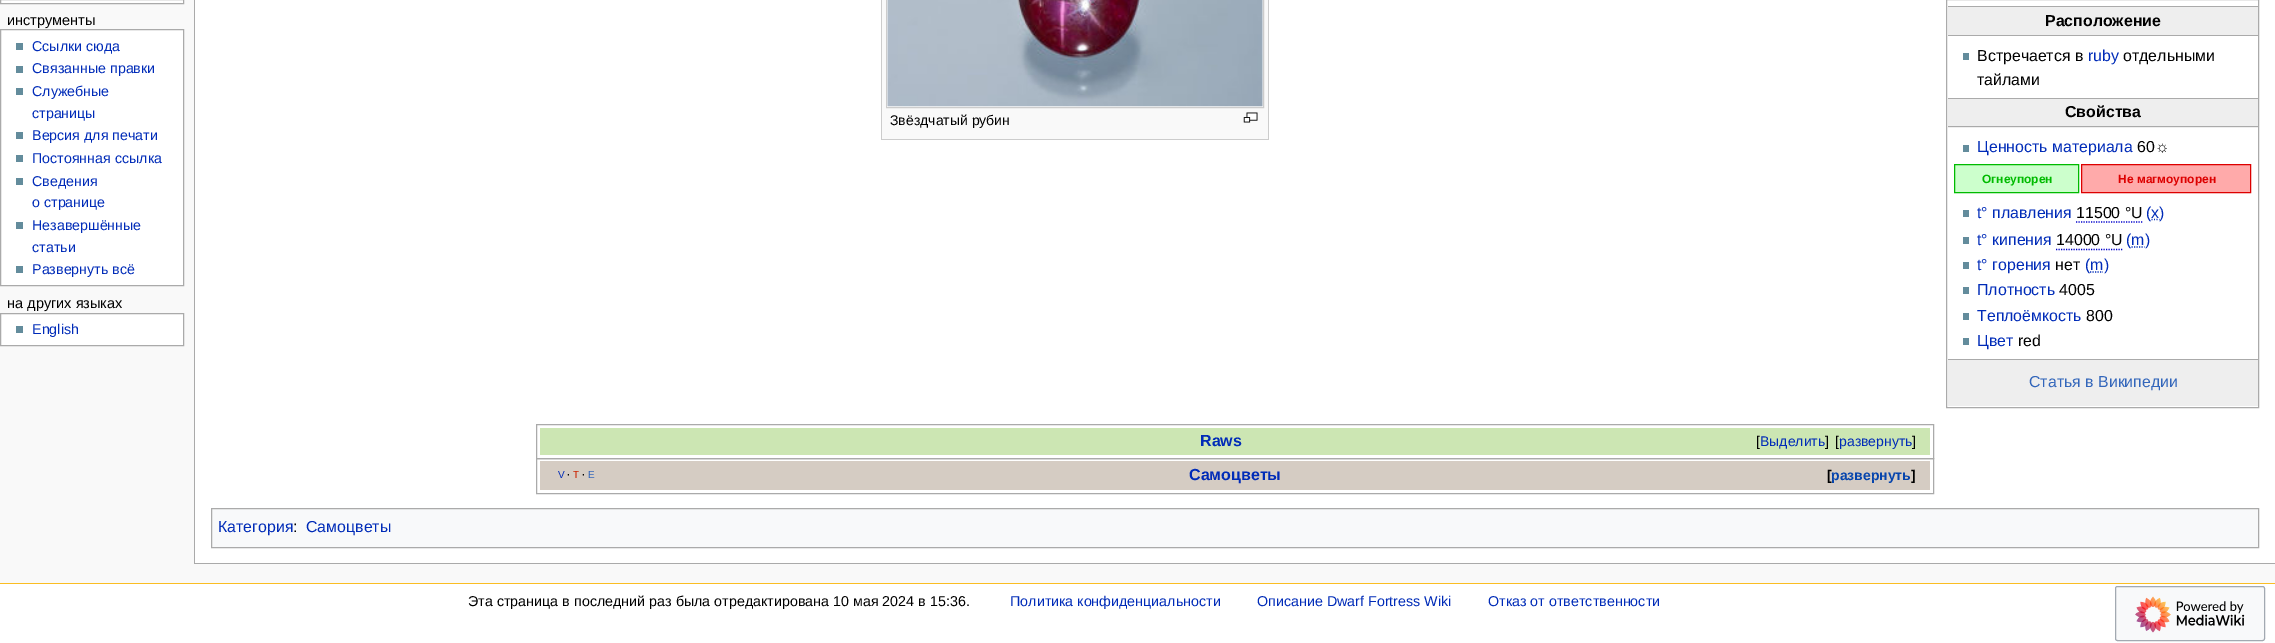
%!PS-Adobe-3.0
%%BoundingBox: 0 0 2275 643
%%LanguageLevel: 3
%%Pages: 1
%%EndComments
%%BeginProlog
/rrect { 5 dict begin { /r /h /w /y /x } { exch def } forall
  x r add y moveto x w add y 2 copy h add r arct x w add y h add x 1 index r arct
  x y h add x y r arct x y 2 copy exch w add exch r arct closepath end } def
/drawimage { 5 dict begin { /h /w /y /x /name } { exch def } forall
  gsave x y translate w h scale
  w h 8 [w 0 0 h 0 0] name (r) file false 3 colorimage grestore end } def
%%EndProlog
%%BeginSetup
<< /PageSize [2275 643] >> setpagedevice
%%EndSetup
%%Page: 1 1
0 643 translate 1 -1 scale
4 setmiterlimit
0.976 setgray
0 0 2275 643 rectfill
1 setgray
newpath 0.5 -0.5 moveto 183.5 -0.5 lineto 183.5 3.5 lineto 0.5 3.5 lineto closepath gsave fill grestore
0.667 setgray
stroke
1 setgray
newpath 0.5 29.5 moveto 183.5 29.5 lineto 183.5 285.5 lineto 0.5 285.5 lineto closepath gsave fill grestore
0.667 setgray
stroke
0.388 0.549 0.612 setrgbcolor
16 43 7 7 rectfill
16 66 7 7 rectfill
16 88 7 7 rectfill
16 132 7 7 rectfill
16 155 7 7 rectfill
16 178 7 7 rectfill
16 222 7 7 rectfill
16 266 7 7 rectfill
1 setgray
newpath 0.5 313.5 moveto 183.5 313.5 lineto 183.5 345.5 lineto 0.5 345.5 lineto closepath gsave fill grestore
0.667 setgray
stroke
0.388 0.549 0.612 setrgbcolor
16 326 7 7 rectfill
1 setgray
195 0 2080 563 rectfill
0.667 setgray
194 563 2081 1 rectfill
194 0 1 564 rectfill
0.976 setgray
882 0 386 139 rectfill
0.8 setgray
881 139 388 1 rectfill
1268 0 1 140 rectfill
881 0 1 140 rectfill
886.5 -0.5 377 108 rectstroke
(images/1.raw) 887 0 376 107 drawimage
(images/2.raw) 1243 112 15 11 drawimage
0.667 setgray
1946.5 -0.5 312 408 rectstroke
0.933 setgray
1948 7 310 28 rectfill
0.667 setgray
1948 6 310 1 rectfill
1948 35 310 1 rectfill
0.388 0.549 0.612 setrgbcolor
1963 53 6 7 rectfill
0.933 setgray
1948 99 310 29 rectfill
0.667 setgray
1948 98 310 1 rectfill
1948 126 310 1 rectfill
0.388 0.549 0.612 setrgbcolor
1963 145 6 7 rectfill
0.8 1 0.8 setrgbcolor
newpath 1954.5 164.5 moveto 2078.5 164.5 lineto 2078.5 192.5 lineto 1954.5 192.5 lineto closepath gsave fill grestore
0 0.733 0 setrgbcolor
stroke
1 0.667 0.667 setrgbcolor
newpath 2081.5 164.5 moveto 2250.5 164.5 lineto 2250.5 192.5 lineto 2081.5 192.5 lineto closepath gsave fill grestore
0.867 0 0 setrgbcolor
stroke
0.388 0.549 0.612 setrgbcolor
1963 210 6 7 rectfill
0 0 0.8 setrgbcolor
1.2 setlinewidth
[1.25 1.25] 0 setdash
newpath 2076 222 moveto 2142.5 222 lineto stroke
0 0.169 0.722 setrgbcolor
[] 0 setdash
newpath 2151.5 219.5 moveto 2152.5 219.5 lineto 2154 219.5 moveto 2155 219.5 lineto 2156.5 219.5 moveto 2157.5 219.5 lineto 2159 219.5 moveto 2159.5 219.5 lineto stroke
0.388 0.549 0.612 setrgbcolor
1963 237 6 7 rectfill
0 0 0.8 setrgbcolor
[1.25 1.25] 0 setdash
newpath 2056 249.5 moveto 2122.5 249.5 lineto stroke
0 0.169 0.722 setrgbcolor
newpath 2131.5 247 moveto 2144.5 247 lineto stroke
0.388 0.549 0.612 setrgbcolor
1963 262 6 7 rectfill
0 0.169 0.722 setrgbcolor
newpath 2090 272 moveto 2103 272 lineto stroke
0.388 0.549 0.612 setrgbcolor
1963 287 6 7 rectfill
1963 313 6 7 rectfill
1963 338 6 7 rectfill
0.933 setgray
1948 360 310 46 rectfill
0.667 setgray
1948 359 310 1 rectfill
1 setlinewidth
[] 0 setdash
536.5 424.5 1397 34 rectstroke
0.8 0.902 0.702 setrgbcolor
540 428 1390 27 rectfill
0.667 setgray
536.5 458.5 1397 35 rectstroke
0.835 0.8 0.765 setrgbcolor
540 461 1390 29 rectfill
0.973 0.976 0.98 setrgbcolor
newpath 211.5 508.5 moveto 2258.5 508.5 lineto 2258.5 547.5 lineto 211.5 547.5 lineto closepath gsave fill grestore
0.667 setgray
stroke
1 setgray
0 584 2275 59 rectfill
0.98 0.741 0.137 setrgbcolor
0 583 2275 1 rectfill
0.973 0.976 0.98 setrgbcolor
2115.5 586.5 149 54 2 rrect gsave fill grestore
0.635 0.663 0.694 setrgbcolor
stroke
(images/3.raw) 2135 596 110 37 drawimage
/LiberationSans-Regular [14.5 0 0 -14.5 0 0] selectfont
0 setgray
7 25 moveto (инструменты) show
/LiberationSans-Regular [14.25 0 0 -14.25 0 0] selectfont
0 0.169 0.722 setrgbcolor
32 51 moveto (Ссылки сюда) show
32 73 moveto (Связанные правки) show
32 96 moveto (Служебные) show
32 118 moveto (страницы) show
32 140 moveto (Версия для печати) show
32 163 moveto (Постоянная ссылка) show
32 186 moveto (Сведения) show
32 207 moveto (о странице) show
32 230 moveto (Незавершённые) show
32 252 moveto (статьи) show
32 274 moveto (Развернуть всё) show
/LiberationSans-Regular [14.5 0 0 -14.5 0 0] selectfont
0 setgray
7 308 moveto (на других языках) show
/LiberationSans-Regular [14.25 0 0 -14.25 0 0] selectfont
0 0.169 0.722 setrgbcolor
32 334 moveto (English) show
/LiberationSans-Regular [14 0 0 -14 0 0] selectfont
0 setgray
890 125 moveto (Звёздчатый рубин) show
/LiberationSans-Bold [15.9 0 0 -15.9 0 0] selectfont
2045 26 moveto (Расположение) show
/LiberationSans-Regular [15.9 0 0 -15.9 0 0] selectfont
1977 61 moveto (Встречается в) show
0 0.169 0.722 setrgbcolor
2088 61 moveto (ruby) show
0 setgray
2123 61 moveto (отдельными) show
1977 85 moveto (тайлами) show
/LiberationSans-Bold [15.9 0 0 -15.9 0 0] selectfont
2065 117 moveto (Свойства) show
/LiberationSans-Regular [15.9 0 0 -15.9 0 0] selectfont
0 0.169 0.722 setrgbcolor
1977 152 moveto (Ценность материала) show
0 setgray
2137 152 moveto (60☼) show
/LiberationSans-Bold [12 0 0 -12 0 0] selectfont
0 0.733 0 setrgbcolor
1982 183 moveto (Огнеупорен) show
0.867 0 0 setrgbcolor
2118 183 moveto (Не магмоупорен) show
/LiberationSans-Regular [15.9 0 0 -15.9 0 0] selectfont
0 0.169 0.722 setrgbcolor
1977 218 moveto (t° плавления) show
0 setgray
2076 218 moveto (11500 °U) show
0 0.169 0.722 setrgbcolor
2146 218 moveto (\(x) show
2159 218 moveto (\)) show
1977 245 moveto (t° кипения) show
0 setgray
2056 245 moveto (14000 °U) show
0 0.169 0.722 setrgbcolor
2126 245 moveto (\(m) show
2145 245 moveto (\)) show
1977 270 moveto (t° горения) show
0 setgray
2055 270 moveto (нет) show
0 0.169 0.722 setrgbcolor
2085 270 moveto (\(m\)) show
1977 295 moveto (Плотность) show
0 setgray
2059 295 moveto (4005) show
0 0.169 0.722 setrgbcolor
1977 321 moveto (Теплоёмкость) show
0 setgray
2086 321 moveto (800) show
0 0.169 0.722 setrgbcolor
1977 346 moveto (Цвет) show
0 setgray
2018 346 moveto (red) show
0.2 0.4 0.733 setrgbcolor
2029 387 moveto (Статья в Википедии) show
/LiberationSans-Bold [16 0 0 -16 0 0] selectfont
0 0.169 0.722 setrgbcolor
1200 446 moveto (Raws) show
/LiberationSans-Regular [14 0 0 -14 0 0] selectfont
0 setgray
1756 446 moveto ([) show
0 0.169 0.722 setrgbcolor
1760 446 moveto (Выделить) show
0 setgray
1825 446 moveto (]) show
1835 446 moveto ([) show
0 0.169 0.722 setrgbcolor
1839 446 moveto (развернуть) show
0 setgray
1912 446 moveto (]) show
/LiberationSans-Regular [10 0 0 -10 0 0] selectfont
0 0.169 0.722 setrgbcolor
558 478 moveto (V) show
/LiberationSans-Bold [10 0 0 -10 0 0] selectfont
0 setgray
567 478 moveto (·) show
/LiberationSans-Regular [10 0 0 -10 0 0] selectfont
0.8 0.133 0 setrgbcolor
573 478 moveto (T) show
/LiberationSans-Bold [10 0 0 -10 0 0] selectfont
0 setgray
582 478 moveto (·) show
/LiberationSans-Regular [10 0 0 -10 0 0] selectfont
0.2 0.4 0.733 setrgbcolor
588 478 moveto (E) show
/LiberationSans-Bold [16 0 0 -16 0 0] selectfont
0 0.169 0.722 setrgbcolor
1189 480 moveto (Самоцветы) show
/LiberationSans-Bold [14 0 0 -14 0 0] selectfont
0 setgray
1827 480 moveto ([) show
0.024 0.271 0.678 setrgbcolor
1831 480 moveto (развернуть) show
0 setgray
1911 480 moveto (]) show
/LiberationSans-Regular [15.9 0 0 -15.9 0 0] selectfont
0 0.169 0.722 setrgbcolor
218 532 moveto (Категория) show
0 setgray
293 532 moveto (:) show
0 0.169 0.722 setrgbcolor
306 532 moveto (Самоцветы) show
/LiberationSans-Regular [14.3 0 0 -14.3 0 0] selectfont
0 setgray
468 606 moveto (Эта страница в последний раз была отредактирована 10 мая 2024 в 15:36.) show
0 0.169 0.722 setrgbcolor
1010 606 moveto (Политика конфиденциальности) show
1257 606 moveto (Описание Dwarf Fortress Wiki) show
1488 606 moveto (Отказ от ответственности) show
showpage
%%EOF
